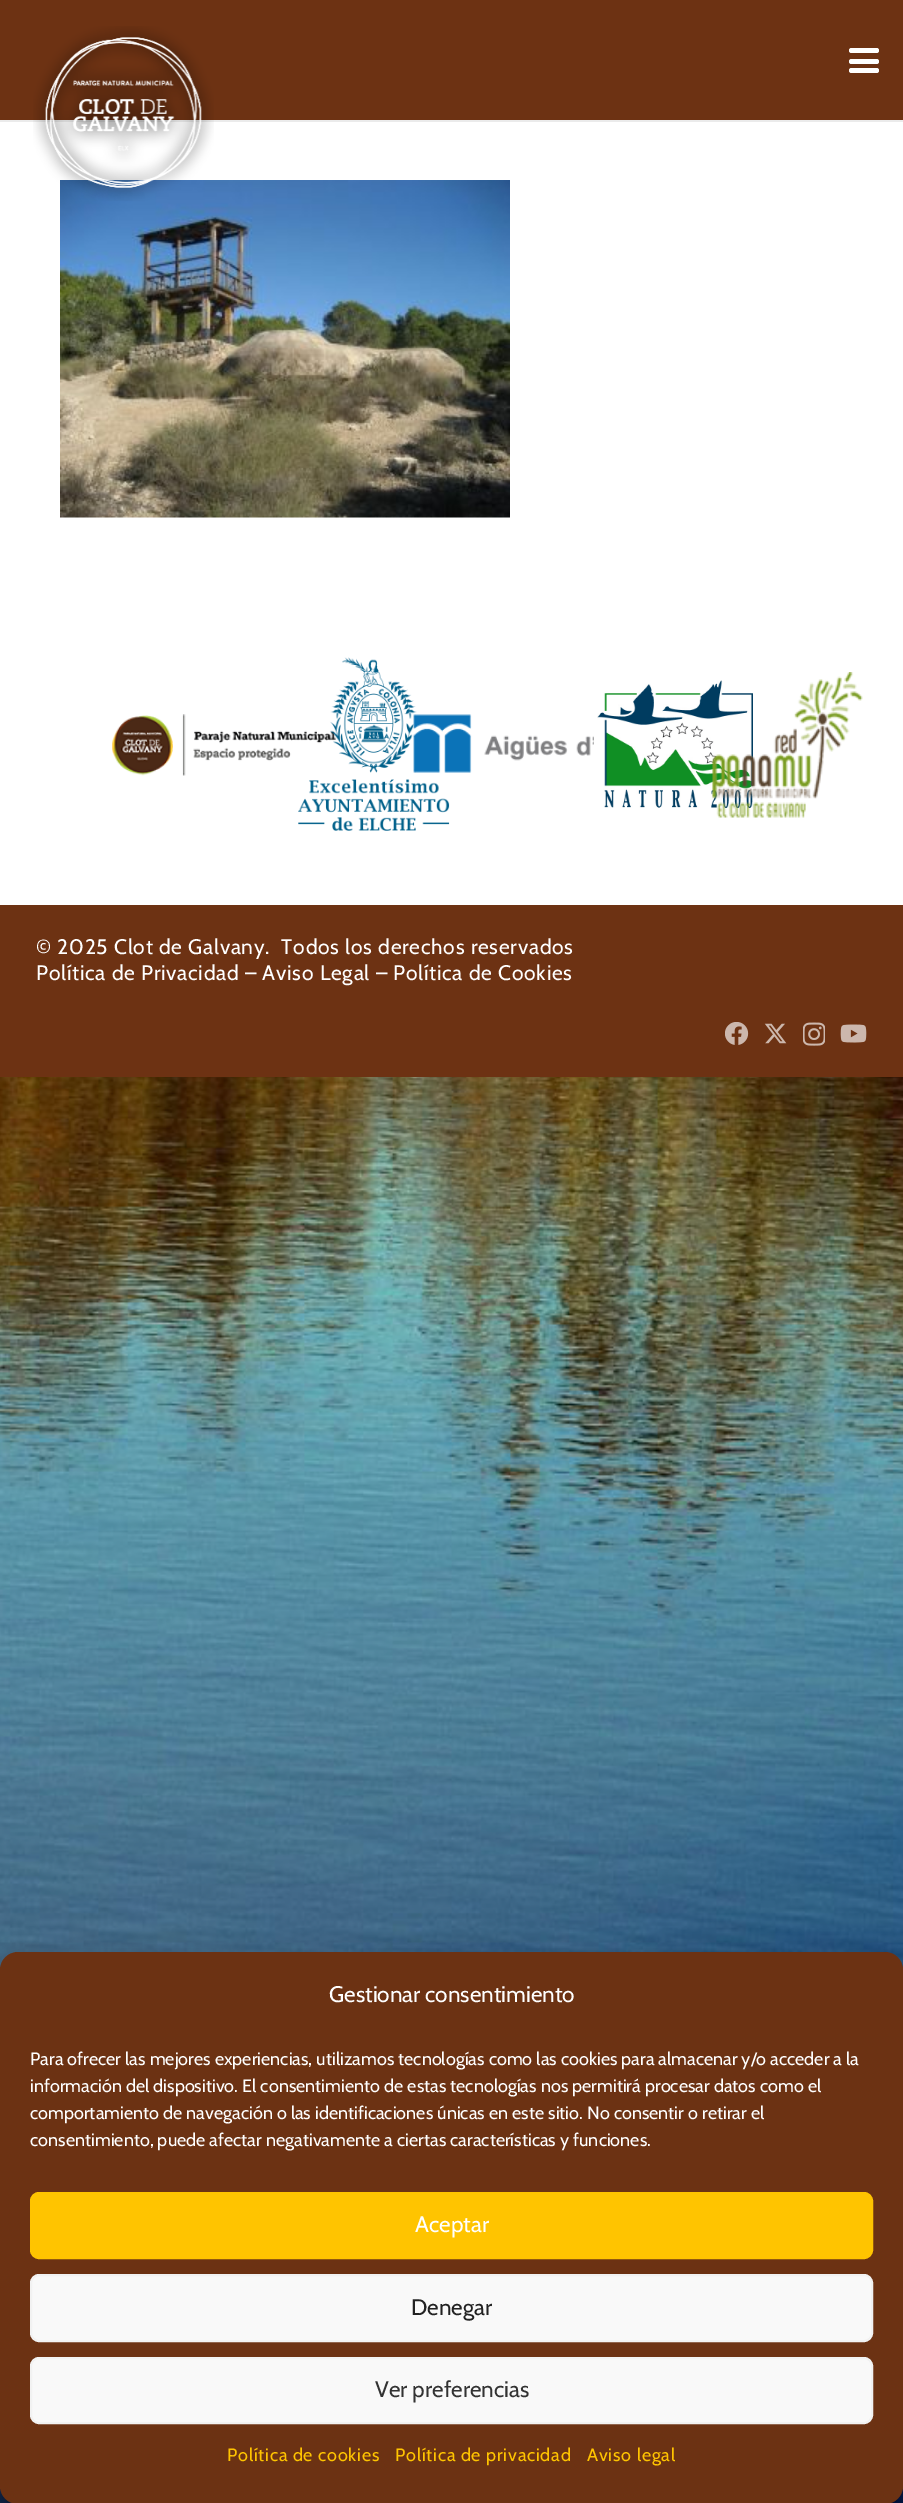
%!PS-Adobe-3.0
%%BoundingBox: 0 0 903 2503
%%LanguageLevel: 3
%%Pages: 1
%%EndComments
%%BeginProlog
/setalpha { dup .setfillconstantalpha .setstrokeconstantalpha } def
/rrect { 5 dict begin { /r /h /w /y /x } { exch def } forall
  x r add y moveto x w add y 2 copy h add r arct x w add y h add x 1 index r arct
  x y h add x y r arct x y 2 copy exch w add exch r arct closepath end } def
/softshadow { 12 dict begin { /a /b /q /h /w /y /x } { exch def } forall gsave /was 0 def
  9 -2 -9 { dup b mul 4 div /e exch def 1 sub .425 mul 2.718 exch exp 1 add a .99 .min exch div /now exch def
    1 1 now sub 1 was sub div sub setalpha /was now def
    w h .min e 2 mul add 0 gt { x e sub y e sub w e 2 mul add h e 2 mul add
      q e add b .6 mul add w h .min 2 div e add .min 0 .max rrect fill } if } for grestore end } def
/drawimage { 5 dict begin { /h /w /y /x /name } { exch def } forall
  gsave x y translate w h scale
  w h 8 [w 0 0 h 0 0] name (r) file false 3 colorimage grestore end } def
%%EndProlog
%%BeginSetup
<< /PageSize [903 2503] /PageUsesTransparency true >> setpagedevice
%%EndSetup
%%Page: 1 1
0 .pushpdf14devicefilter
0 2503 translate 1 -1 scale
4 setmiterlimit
1 setgray
0 0 903 2503 rectfill
(images/1.raw) 0 1077 903 1426 drawimage
0.922 setgray
0 120 903 2 rectfill
0.427 0.196 0.075 setrgbcolor
0 0 903 120 rectfill
(images/3.raw) 60 180 450 338 drawimage
(images/2.raw) 33 26 181 175 drawimage
1 setgray
849 59 30 5 2.5 rrect fill
849 48 30 5 2.5 rrect fill
849 68 30 5 2.5 rrect fill
(images/4.raw) 112 714 224 62 drawimage
(images/5.raw) 298 657 152 174 drawimage
(images/6.raw) 413 714 181 59 drawimage
(images/7.raw) 594 680 159 128 drawimage
(images/8.raw) 712 672 151 146 drawimage
0.427 0.196 0.075 setrgbcolor
0 905 903 172 rectfill
(images/9.raw) 725 1022 24 23 drawimage
(images/10.raw) 764 1023 23 21 drawimage
(images/11.raw) 803 1022 22 24 drawimage
(images/12.raw) 840 1024 27 19 drawimage
0 setgray
0 1961 903 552 18 4.5 0.23 softshadow
0 1967 903 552 18 15 0.19 softshadow
0.502 setgray
798 2393 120 90 3 4 1 softshadow
0.424 0.196 0.075 setrgbcolor
0 1952 903 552 18 rrect fill
1 0.769 0 setrgbcolor
31 2193 841 65 8 rrect gsave fill grestore
2 setlinewidth
stroke
0.976 setgray
31 2275 841 66 8 rrect gsave fill grestore
0.949 setgray
stroke
0.976 setgray
31 2358 841 65 8 rrect gsave fill grestore
0.949 setgray
stroke
/Cabin-Regular [21 0 0 -21 0 0] selectfont
1 setgray
36 954 moveto 0.75 0 (© 2025 Clot de Galvany.  Todos los derechos reservados) ashow
36 980 moveto 0.75 0 (Política de Privacidad – Aviso Legal – Política de Cookies) ashow
/Cabin-Regular [22.5 0 0 -22.5 0 0] selectfont
329 2002 moveto (Gestionar consentimiento) show
/Cabin-Regular [18 0 0 -18 0 0] selectfont
30 2065 moveto (Para ofrecer las mejores experiencias, utilizamos tecnologías como las cookies para almacenar y/o acceder a la) show
30 2092 moveto (información del dispositivo. El consentimiento de estas tecnologías nos permitirá procesar datos como el) show
30 2119 moveto (comportamiento de navegación o las identificaciones únicas en este sitio. No consentir o retirar el) show
30 2146 moveto (consentimiento, puede afectar negativamente a ciertas características y funciones.) show
/Cabin-Regular [22.5 0 0 -22.5 0 0] selectfont
415 2232 moveto (Aceptar) show
0.133 setgray
411 2315 moveto (Denegar) show
0.2 setgray
375 2397 moveto (Ver preferencias) show
/Cabin-Regular [18 0 0 -18 0 0] selectfont
1 0.769 0 setrgbcolor
227 2461 moveto 0.75 0 (Política de cookies) ashow
395 2461 moveto 0.75 0 (Política de privacidad) ashow
587 2461 moveto 0.75 0 (Aviso legal) ashow
.poppdf14devicefilter showpage
%%EOF
